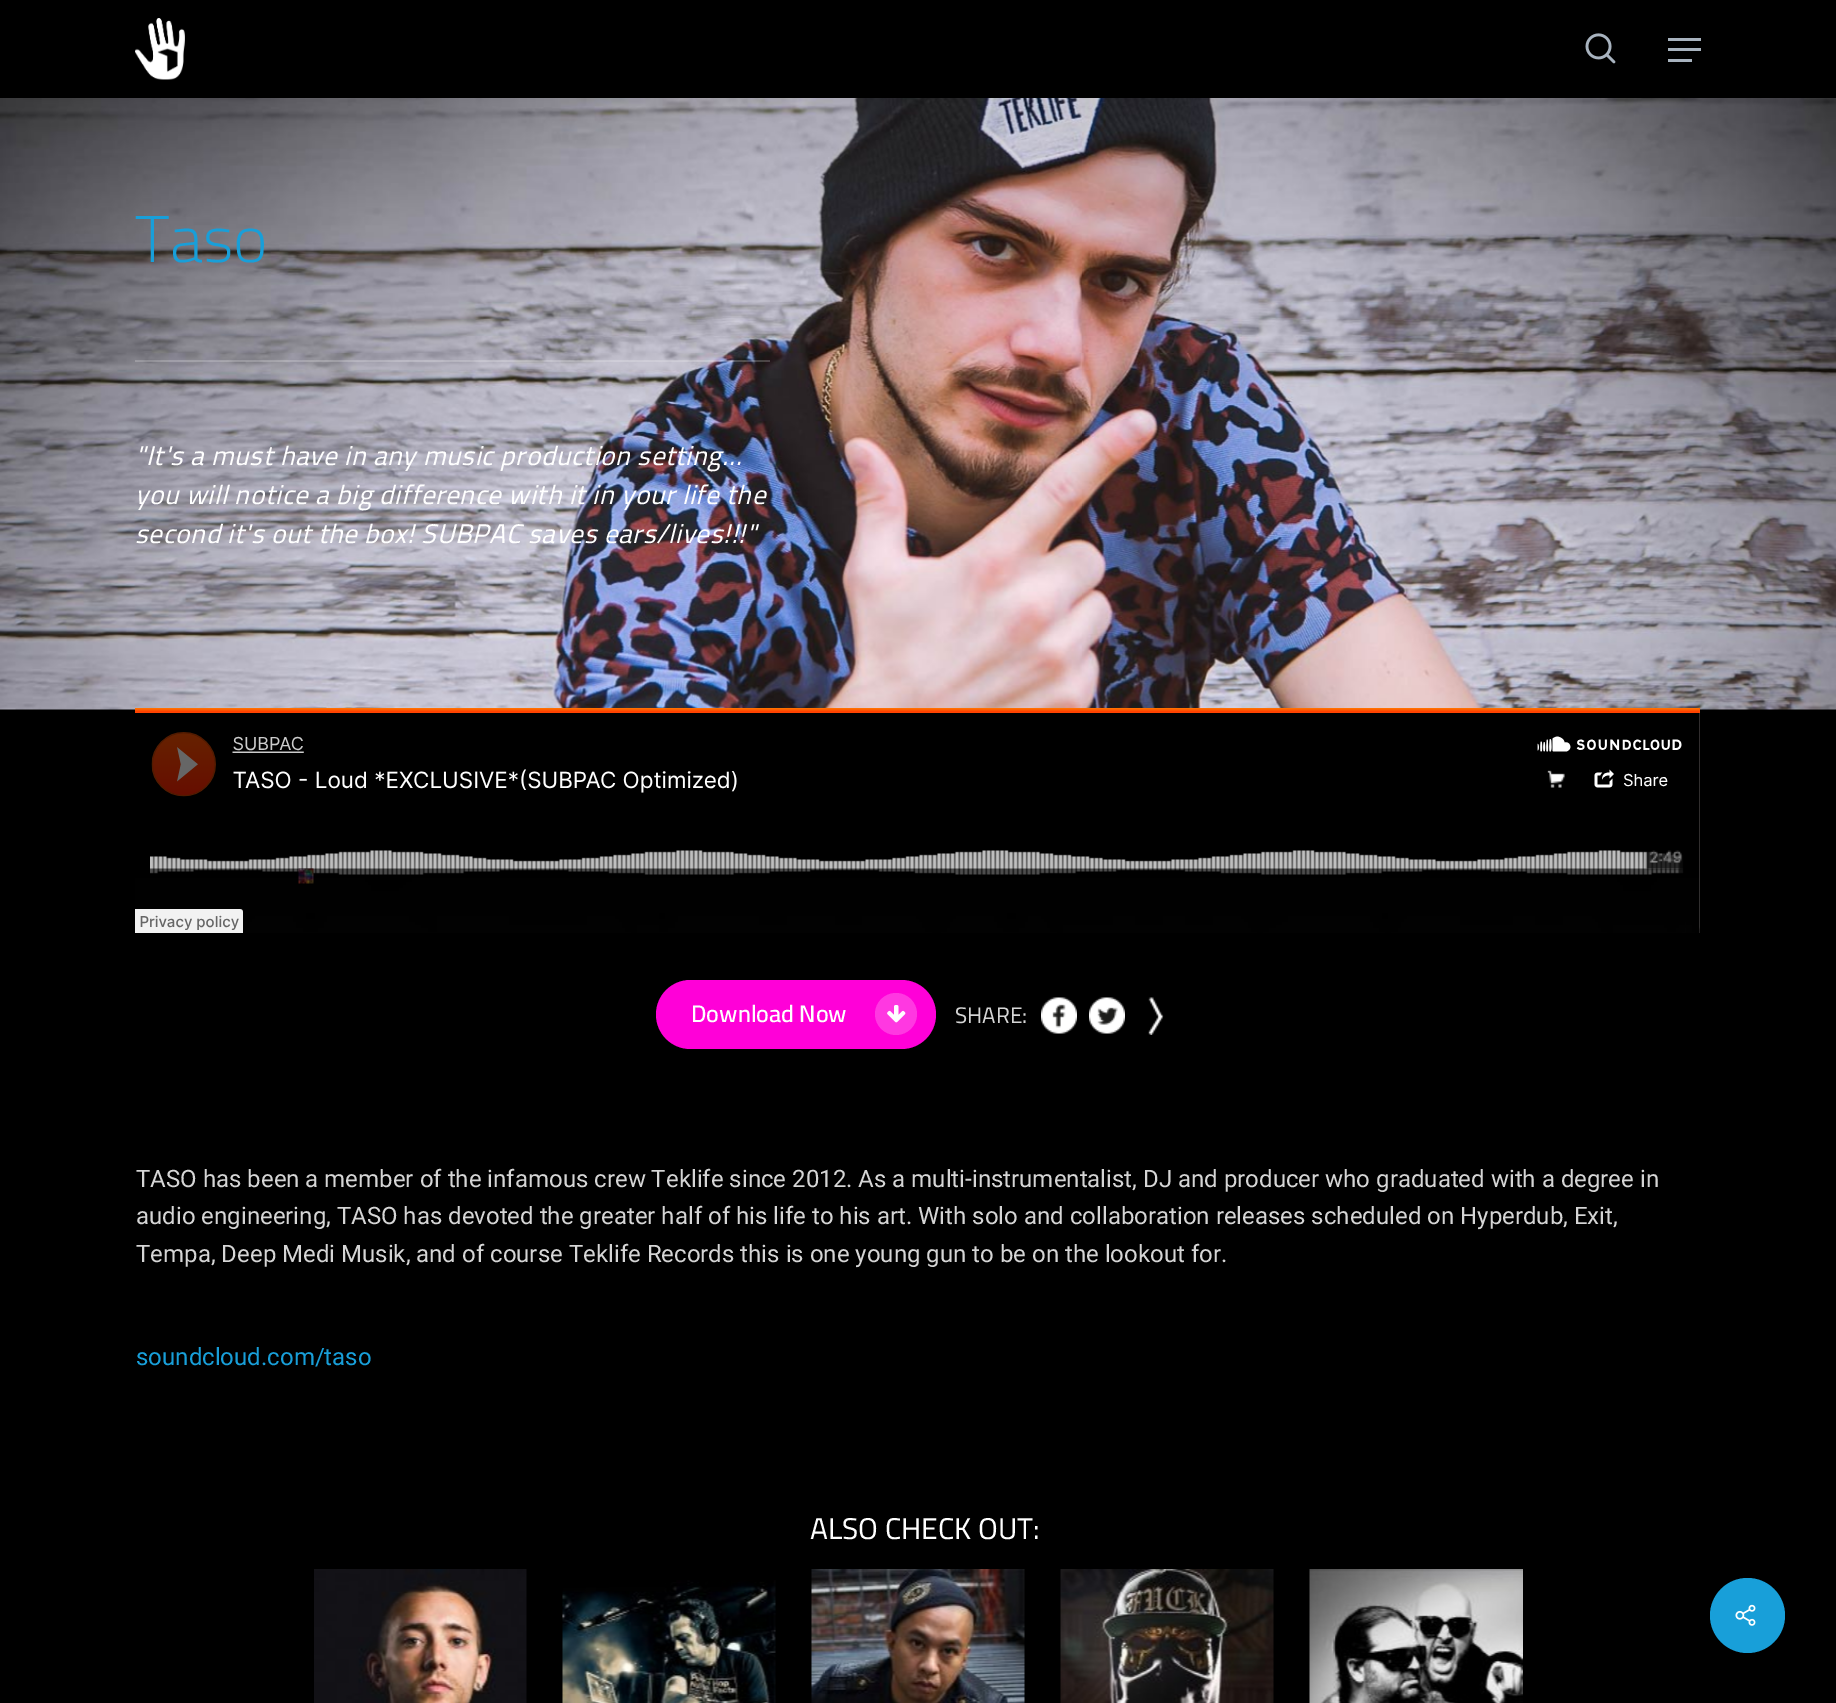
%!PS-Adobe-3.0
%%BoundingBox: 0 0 1836 1703
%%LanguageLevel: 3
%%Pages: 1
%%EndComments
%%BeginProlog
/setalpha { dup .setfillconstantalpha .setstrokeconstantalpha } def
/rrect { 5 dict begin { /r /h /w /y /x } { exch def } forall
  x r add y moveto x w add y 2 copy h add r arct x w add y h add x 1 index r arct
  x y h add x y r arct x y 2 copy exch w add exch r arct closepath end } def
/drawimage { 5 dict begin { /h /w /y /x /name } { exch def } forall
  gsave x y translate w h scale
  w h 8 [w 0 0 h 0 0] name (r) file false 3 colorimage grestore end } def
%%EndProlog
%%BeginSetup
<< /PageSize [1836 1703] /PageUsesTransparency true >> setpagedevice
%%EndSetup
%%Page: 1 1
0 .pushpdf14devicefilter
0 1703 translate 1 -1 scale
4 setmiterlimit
0 setgray
0 0 1836 1703 rectfill
(images/1.raw) 135 18 50 62 drawimage
(images/2.raw) 1585 33 31 31 drawimage
0.659 0.702 0.749 setrgbcolor
1668 38 33 3 rectfill
1668 59 24 3 rectfill
1668 48 33 3 rectfill
(images/3.raw) 0 98 1836 612 drawimage
0.2 setalpha
1 setgray
135 360 635 2 rectfill
1 setalpha
(images/4.raw) 135 708 1565 225 drawimage
1 0 0.847 setrgbcolor
656 980 280 69 34.5 rrect fill
1 0.22 0.882 setrgbcolor
newpath 896 1014 21 0 360 arc closepath fill
(images/5.raw) 887 1005 19 18 drawimage
(images/6.raw) 1041 997 36 37 drawimage
(images/7.raw) 1089 997 36 37 drawimage
(images/8.raw) 1148 997 16 38 drawimage
(images/9.raw) 314 1569 213 134 drawimage
(images/10.raw) 562 1580 214 123 drawimage
(images/11.raw) 811 1569 214 134 drawimage
(images/12.raw) 1060 1569 214 134 drawimage
(images/13.raw) 1309 1569 214 134 drawimage
0.094 0.624 0.851 setrgbcolor
newpath 1747.5 1615.5 37.5 0 360 arc closepath fill
(images/14.raw) 1735 1604 21 22 drawimage
/Cairo-Light [66 0 0 -66 0 0] selectfont
135 262 moveto (Taso) show
/Cairo-Italic [27 0 0 -27 0 0] selectfont
1 setgray
135 465 moveto 0.75 0 ("It's a must have in any music production setting…) ashow
135 504 moveto 0.75 0 (you will notice a big difference with it in your life the) ashow
135 543 moveto 0.75 0 (second it's out the box! SUBPAC saves ears/lives!!!") ashow
/Cairo-SemiBold [24 0 0 -24 0 0] selectfont
691 1022 moveto (Download Now) show
/Cairo-Regular [22.5 0 0 -22.5 0 0] selectfont
0.835 setgray
955 1023 moveto (SHARE:) show
/Roboto-Regular [24 0 0 -24 0 0] selectfont
136 1187 moveto (TASO has been a member of the infamous crew Teklife since 2012. As a multi-instrumentalist, DJ and producer who graduated with a degree in) show
136 1224 moveto (audio engineering, TASO has devoted the greater half of his life to his art. With solo and collaboration releases scheduled on Hyperdub, Exit,) show
136 1262 moveto (Tempa, Deep Medi Musik, and of course Teklife Records this is one young gun to be on the lookout for.) show
0.094 0.624 0.851 setrgbcolor
136 1365 moveto (soundcloud.com/taso) show
/Cairo-Regular [30 0 0 -30 0 0] selectfont
1 setgray
810 1539 moveto (ALSO CHECK OUT:) show
.poppdf14devicefilter showpage
%%EOF
